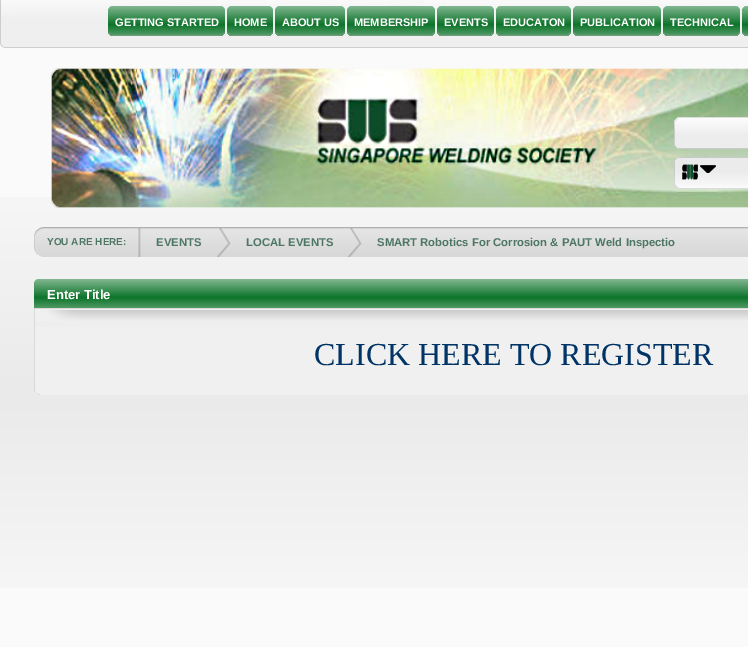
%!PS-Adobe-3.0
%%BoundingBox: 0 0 748 647
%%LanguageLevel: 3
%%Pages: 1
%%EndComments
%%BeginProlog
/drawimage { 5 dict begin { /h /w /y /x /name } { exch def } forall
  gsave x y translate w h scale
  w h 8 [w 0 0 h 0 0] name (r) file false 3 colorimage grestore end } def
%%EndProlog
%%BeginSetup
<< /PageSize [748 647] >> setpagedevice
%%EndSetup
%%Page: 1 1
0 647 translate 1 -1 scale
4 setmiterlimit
0.98 setgray
0 0 748 647 rectfill
(images/1.raw) 0 0 748 48 drawimage
(images/2.raw) 219 6 6 30 drawimage
(images/3.raw) 108 6 111 30 drawimage
(images/2.raw) 267 6 6 30 drawimage
(images/4.raw) 227 6 40 30 drawimage
(images/2.raw) 339 6 6 30 drawimage
(images/5.raw) 275 6 64 30 drawimage
(images/2.raw) 429 6 6 30 drawimage
(images/6.raw) 347 6 82 30 drawimage
(images/2.raw) 488 6 6 30 drawimage
(images/7.raw) 437 6 51 30 drawimage
(images/2.raw) 565 6 6 30 drawimage
(images/8.raw) 496 6 69 30 drawimage
(images/2.raw) 655 6 6 30 drawimage
(images/9.raw) 573 6 82 30 drawimage
(images/2.raw) 734 6 6 30 drawimage
(images/10.raw) 663 6 71 30 drawimage
(images/11.raw) 742 6 6 30 drawimage
(images/12.raw) 0 197 748 391 drawimage
(images/13.raw) 51 68 697 140 drawimage
(images/14.raw) 674 117 74 32 drawimage
(images/15.raw) 674 157 74 32 drawimage
(images/16.raw) 682 164 16 16 drawimage
(images/17.raw) 700 165 16 8 drawimage
(images/18.raw) 34 227 714 30 drawimage
(images/19.raw) 138 228 3 29 drawimage
(images/20.raw) 217 228 14 29 drawimage
(images/20.raw) 348 228 14 29 drawimage
(images/21.raw) 34 279 6 29 drawimage
(images/22.raw) 40 279 708 29 drawimage
0.941 setgray
35 327 713 63 rectfill
0.851 setgray
34 308 714 1 rectfill
34 308 1 82 rectfill
(images/23.raw) 79 310 669 10 drawimage
(images/24.raw) 35 310 44 11 drawimage
(images/25.raw) 34 390 6 5 drawimage
0.941 setgray
40 390 708 5 rectfill
/LiberationSans-Bold [11 0 0 -11 0 0] selectfont
1 setgray
115 26 moveto (GETTING STARTED) show
234 26 moveto (HOME) show
282 26 moveto (ABOUT US) show
354 26 moveto (MEMBERSHIP) show
444 26 moveto (EVENTS) show
503 26 moveto (EDUCATON) show
580 26 moveto (PUBLICATION) show
670 26 moveto (TECHNICAL) show
/LiberationSans-Bold [10 0 0 -10 0 0] selectfont
0.302 0.467 0.392 setrgbcolor
47 245 moveto (YOU ARE HERE:) show
/LiberationSans-Bold [11.3 0 0 -11.3 0 0] selectfont
156 246 moveto (EVENTS) show
246 246 moveto (LOCAL EVENTS) show
377 246 moveto (SMART Robotics For Corrosion & PAUT Weld Inspectio) show
/LiberationSans-Bold [13 0 0 -13 0 0] selectfont
1 setgray
47 299 moveto (Enter Title) show
/LiberationSerif-Regular [32 0 0 -32 0 0] selectfont
0 0.2 0.4 setrgbcolor
314 365 moveto (CLICK HERE TO REGISTER) show
showpage
%%EOF
